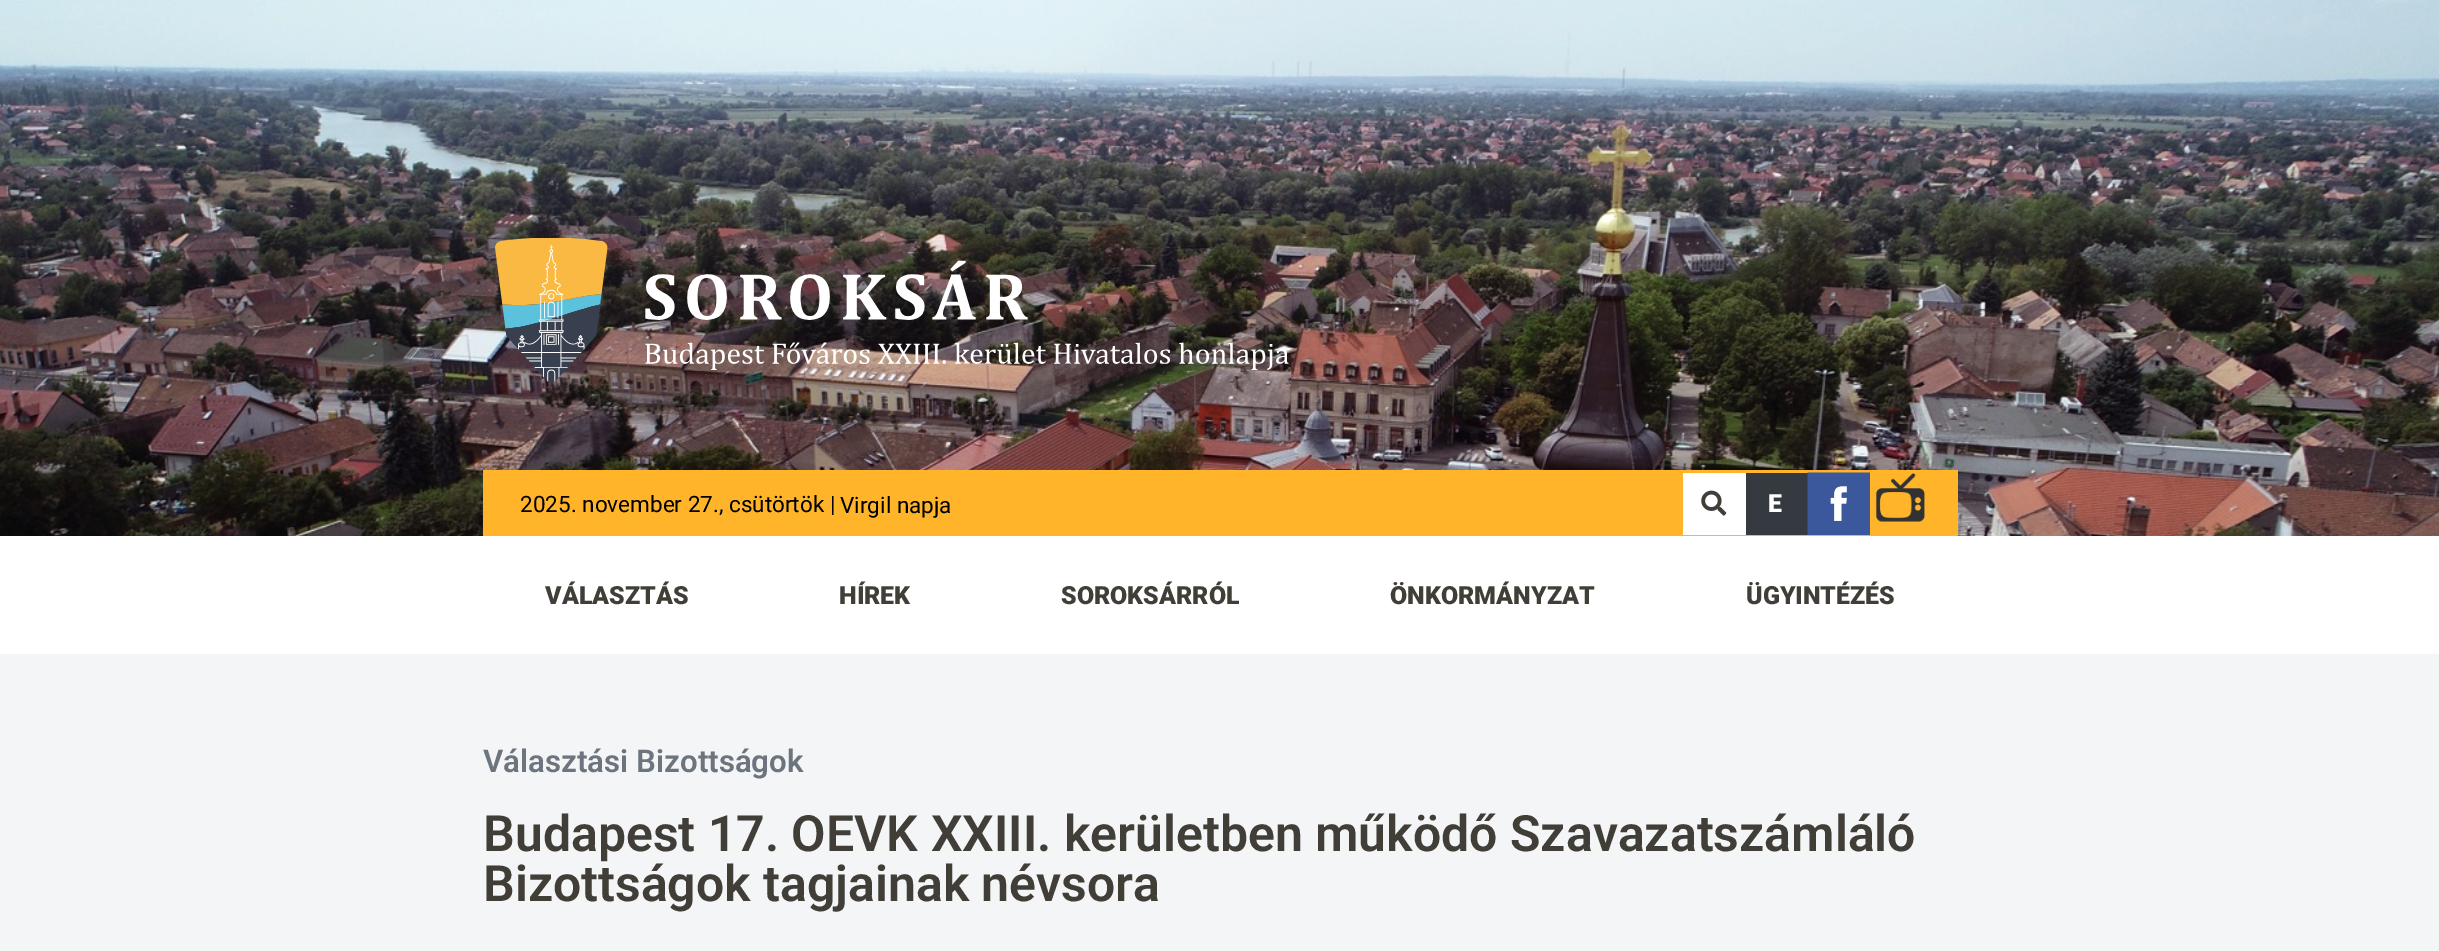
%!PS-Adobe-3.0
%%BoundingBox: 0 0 2439 951
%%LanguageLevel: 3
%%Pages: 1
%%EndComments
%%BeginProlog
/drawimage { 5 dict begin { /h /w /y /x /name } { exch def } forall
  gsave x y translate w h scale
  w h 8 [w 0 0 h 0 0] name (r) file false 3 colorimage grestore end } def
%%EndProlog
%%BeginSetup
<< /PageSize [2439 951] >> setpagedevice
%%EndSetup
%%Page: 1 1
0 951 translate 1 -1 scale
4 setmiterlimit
0.953 0.961 0.969 setrgbcolor
0 0 2439 951 rectfill
(images/1.raw) 0 0 2439 536 drawimage
(images/2.raw) 495 238 794 145 drawimage
1 0.706 0.165 setrgbcolor
483 470 1475 66 rectfill
1 setgray
1683 473 63 62 rectfill
(images/3.raw) 1701 490 26 26 drawimage
0.204 0.227 0.251 setrgbcolor
1746 473 62 62 rectfill
(images/4.raw) 1807 472 63 63 drawimage
(images/5.raw) 1876 473 49 49 drawimage
1 setgray
0 536 2439 118 rectfill
/Roboto-Regular [22.5 0 0 -22.5 0 0] selectfont
0 setgray
520 512 moveto (2025. november 27., csütörtök |) show
840 513 moveto (Virgil napja) show
/Roboto-Black [25 0 0 -25 0 0] selectfont
1 setgray
1768 512 moveto (E) show
0.255 0.243 0.22 setrgbcolor
545 604 moveto (VÁLASZTÁS) show
839 604 moveto (HÍREK) show
1061 604 moveto (SOROKSÁRRÓL) show
1390 604 moveto (ÖNKORMÁNYZAT) show
1746 604 moveto (ÜGYINTÉZÉS) show
/Roboto-SemiBold [31.25 0 0 -31.25 0 0] selectfont
0.424 0.459 0.49 setrgbcolor
483 772 moveto (Választási Bizottságok) show
/Roboto-SemiBold [50 0 0 -50 0 0] selectfont
0.255 0.243 0.22 setrgbcolor
483 851 moveto (Budapest 17. OEVK XXIII. kerületben működő Szavazatszámláló) show
483 901 moveto (Bizottságok tagjainak névsora) show
showpage
%%EOF
